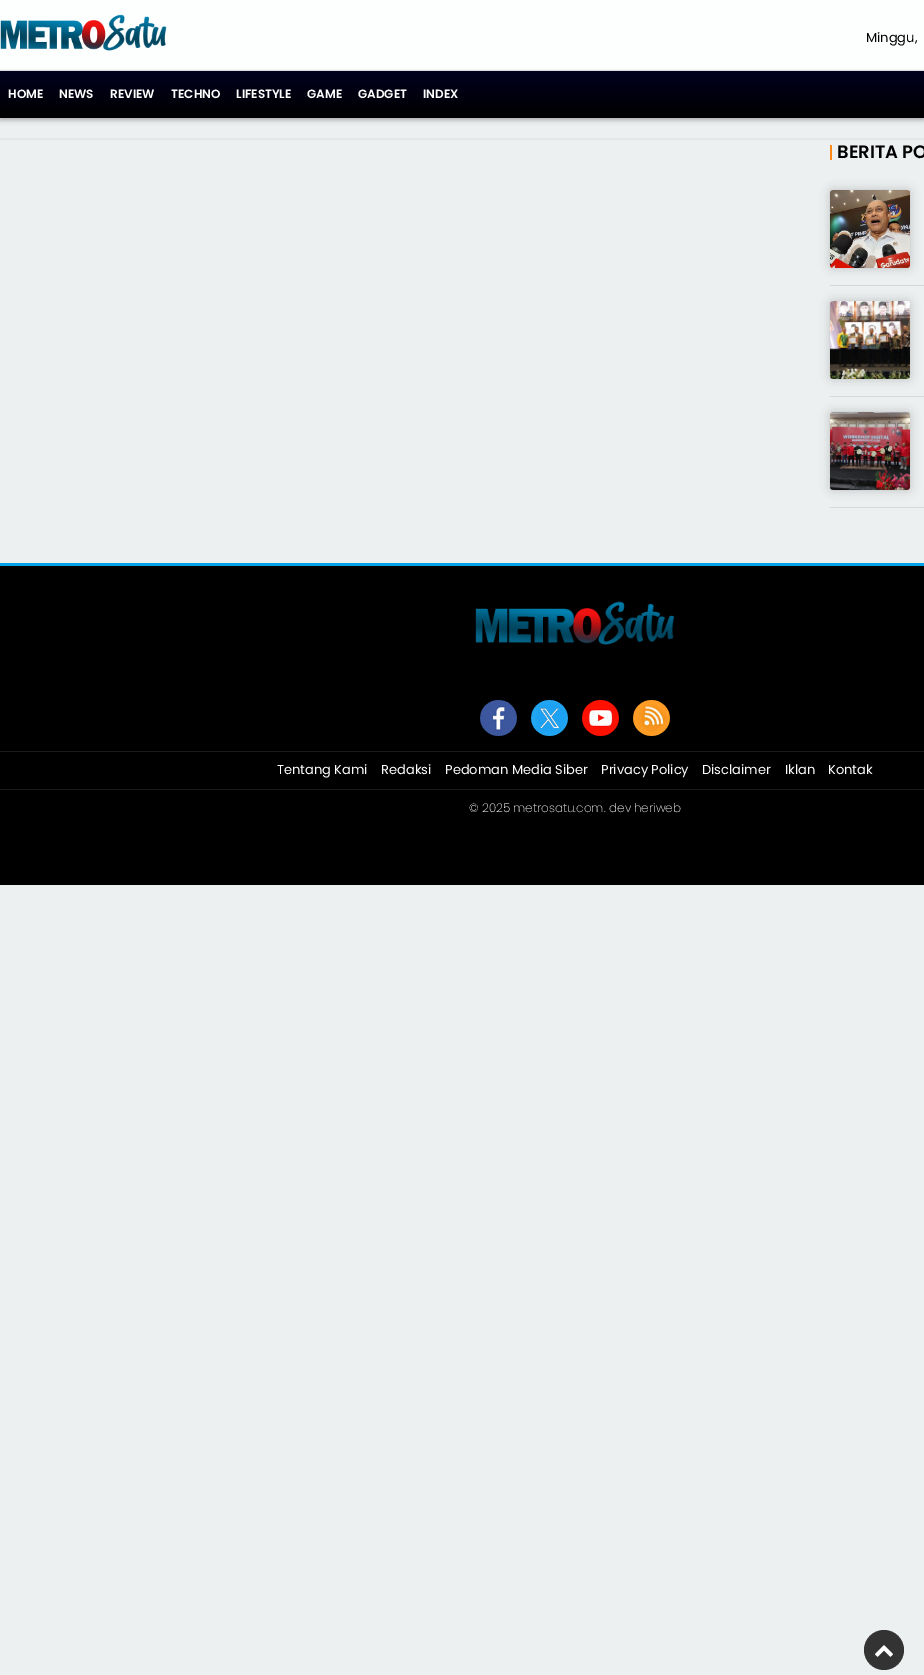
%!PS-Adobe-3.0
%%BoundingBox: 0 0 924 1675
%%LanguageLevel: 3
%%Pages: 1
%%EndComments
%%BeginProlog
/setalpha { dup .setfillconstantalpha .setstrokeconstantalpha } def
/rrect { 5 dict begin { /r /h /w /y /x } { exch def } forall
  x r add y moveto x w add y 2 copy h add r arct x w add y h add x 1 index r arct
  x y h add x y r arct x y 2 copy exch w add exch r arct closepath end } def
/softshadow { 12 dict begin { /a /b /q /h /w /y /x } { exch def } forall gsave /was 0 def
  9 -2 -9 { dup b mul 4 div /e exch def 1 sub .425 mul 2.718 exch exp 1 add a .99 .min exch div /now exch def
    1 1 now sub 1 was sub div sub setalpha /was now def
    w h .min e 2 mul add 0 gt { x e sub y e sub w e 2 mul add h e 2 mul add
      q e add b .6 mul add w h .min 2 div e add .min 0 .max rrect fill } if } for grestore end } def
/drawimage { 5 dict begin { /h /w /y /x /name } { exch def } forall
  gsave x y translate w h scale
  w h 8 [w 0 0 h 0 0] name (r) file false 3 colorimage grestore end } def
%%EndProlog
%%BeginSetup
<< /PageSize [924 1675] /PageUsesTransparency true >> setpagedevice
%%EndSetup
%%Page: 1 1
0 .pushpdf14devicefilter
0 1675 translate 1 -1 scale
4 setmiterlimit
0.929 0.941 0.945 setrgbcolor
0 0 924 1675 rectfill
0.992 0.996 0.996 setrgbcolor
0 0 924 70 rectfill
0.894 0.898 0.898 setrgbcolor
0 70 924 1 rectfill
(images/1.raw) 0 14 167 37 drawimage
0 setgray
0 73 924 47 0 2.5 0.3 softshadow
gsave newpath 0 71 moveto 924 71 lineto 924 118 lineto 0 118 lineto closepath clip newpath
<< /ShadingType 2 /ColorSpace /DeviceRGB /Coords [462 118 462 71] /Extend [true true] /Function << /FunctionType 2 /Domain [0 1] /C0 [0 0 0] /C1 [0.004 0.004 0.118] /N 1 >> >> shfill grestore
0.902 setgray
0 138 924 2 rectfill
0.996 0.537 0.09 setrgbcolor
830 145 2 15 rectfill
0.843 setgray
830 285 94 1 rectfill
0 setgray
830 190 80 78 3 5 0.2 softshadow
(images/2.raw) 830 190 80 78 drawimage
0.843 setgray
830 396 94 1 rectfill
0 setgray
830 301 80 78 3 5 0.2 softshadow
(images/3.raw) 830 301 80 78 drawimage
0.843 setgray
830 507 94 1 rectfill
0 setgray
830 412 80 78 3 5 0.2 softshadow
(images/4.raw) 830 412 80 78 drawimage
0 566 924 319 rectfill
0 0.635 0.914 setrgbcolor
0 563 924 3 rectfill
(images/5.raw) 475 601 200 44 drawimage
(images/6.raw) 480 700 37 36 drawimage
(images/7.raw) 531 700 37 36 drawimage
(images/8.raw) 582 700 37 36 drawimage
(images/9.raw) 633 700 37 36 drawimage
0.102 setgray
0 751 924 1 rectfill
0 789 924 1 rectfill
0.2 setgray
newpath 884 1650 20 0 360 arc closepath fill
(images/10.raw) 875 1645 18 12 drawimage
/Poppins-Regular [13 0 0 -13 0 0] selectfont
0 setgray
866 42 moveto (Minggu,) show
/Poppins-SemiBold [12 0 0 -12 0 0] selectfont
1 setgray
8 98 moveto (HOME) show
59 98 moveto (NEWS) show
110 98 moveto (REVIEW) show
171 98 moveto (TECHNO) show
236 98 moveto (LIFESTYLE) show
307 98 moveto (GAME) show
358 98 moveto (GADGET) show
423 98 moveto (INDEX) show
/Poppins-SemiBold [18 0 0 -18 0 0] selectfont
0 setgray
837 158 moveto (BERITA PO) show
/Poppins-Regular [13 0 0 -13 0 0] selectfont
1 setgray
277 774 moveto (Tentang Kami) show
381 774 moveto (Redaksi) show
445 774 moveto (Pedoman Media Siber) show
601 774 moveto (Privacy Policy) show
702 774 moveto (Disclaimer) show
785 774 moveto (Iklan) show
828 774 moveto (Kontak) show
/Poppins-ExtraLight [12 0 0 -12 0 0] selectfont
469 812 moveto (© 2025) show
0.937 setgray
513 812 moveto (metrosatu.com) show
1 setgray
604 812 moveto (. dev) show
0.937 setgray
634 812 moveto (heriweb) show
.poppdf14devicefilter showpage
%%EOF
